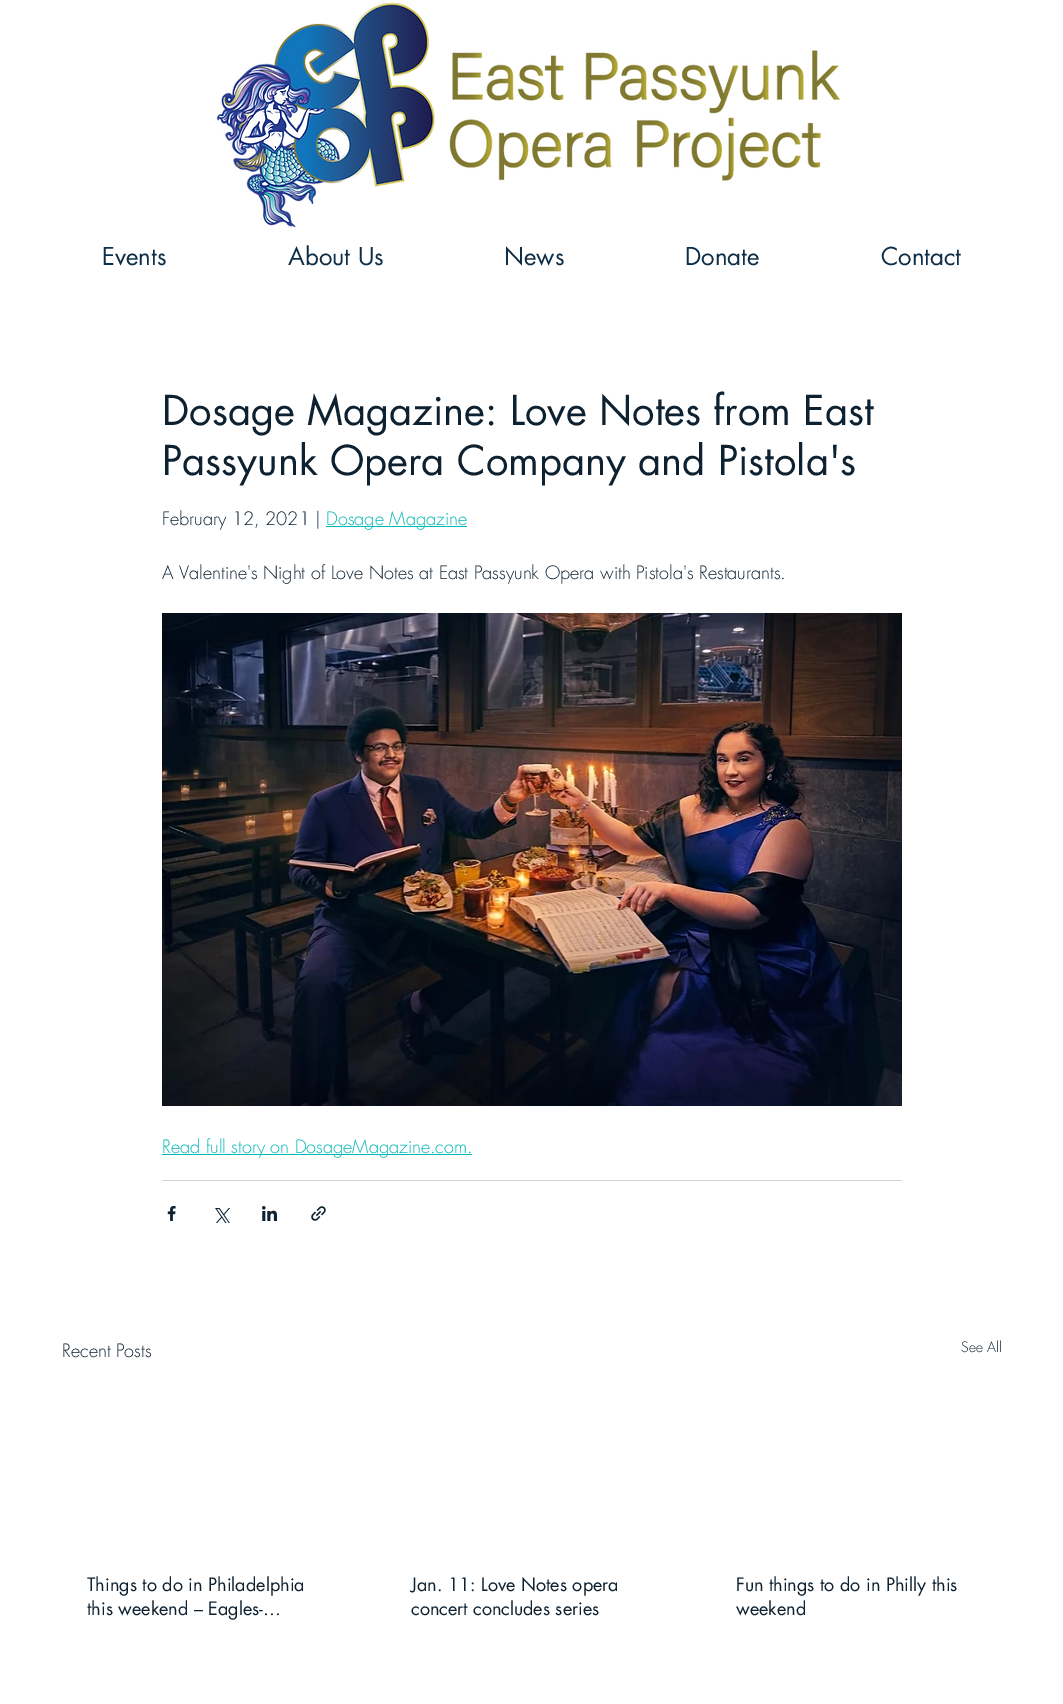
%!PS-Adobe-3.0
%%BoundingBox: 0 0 1063 1704
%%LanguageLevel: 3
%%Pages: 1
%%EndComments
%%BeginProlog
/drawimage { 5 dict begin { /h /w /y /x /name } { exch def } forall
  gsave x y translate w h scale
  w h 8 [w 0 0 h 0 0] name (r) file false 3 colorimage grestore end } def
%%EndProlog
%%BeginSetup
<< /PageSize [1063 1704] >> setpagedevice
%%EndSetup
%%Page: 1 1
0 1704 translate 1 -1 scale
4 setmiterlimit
1 setgray
0 0 1063 1704 rectfill
(images/1.raw) 216 2 625 226 drawimage
0 0.722 0.714 setrgbcolor
326 526 141 1 rectfill
(images/2.raw) 162 613 740 493 drawimage
162 1154 310 1 rectfill
0.812 0.827 0.839 setrgbcolor
162 1180 740 1 rectfill
(images/3.raw) 167 1206 9 15 drawimage
(images/4.raw) 215 1208 15 15 drawimage
(images/5.raw) 262 1206 15 15 drawimage
(images/6.raw) 311 1206 15 15 drawimage
/futura-Regular [24 0 0 -24 0 0] selectfont
0.055 0.18 0.278 setrgbcolor
102 265 moveto (Events) show
288 265 moveto (About Us) show
504 265 moveto (News) show
685 265 moveto (Donate) show
881 265 moveto (Contact) show
/futura-Regular [40 0 0 -40 0 0] selectfont
0.051 0.129 0.188 setrgbcolor
162 425 moveto (Dosage Magazine: Love Notes from East) show
162 475 moveto (Passyunk Opera Company and Pistola's) show
/futura-Light [18 0 0 -18 0 0] selectfont
162 525 moveto (February 12, 2021 |) show
0 0.722 0.714 setrgbcolor
326 525 moveto (Dosage Magazine) show
0.051 0.129 0.188 setrgbcolor
162 579 moveto (A Valentine's Night of Love Notes at East Passyunk Opera with Pistola's Restaurants.) show
0 0.722 0.714 setrgbcolor
162 1153 moveto (Read full story on DosageMagazine.com.) show
0.051 0.129 0.188 setrgbcolor
62 1357 moveto (Recent Posts) show
/futura-Light [14 0 0 -14 0 0] selectfont
961 1352 moveto (See All) show
/futura-Regular [18 0 0 -18 0 0] selectfont
87 1591 moveto (Things to do in Philadelphia) show
87 1615 moveto (this weekend – Eagles-…) show
411 1591 moveto (Jan. 11: Love Notes opera) show
411 1615 moveto (concert concludes series) show
736 1591 moveto (Fun things to do in Philly this) show
736 1615 moveto (weekend) show
showpage
%%EOF
